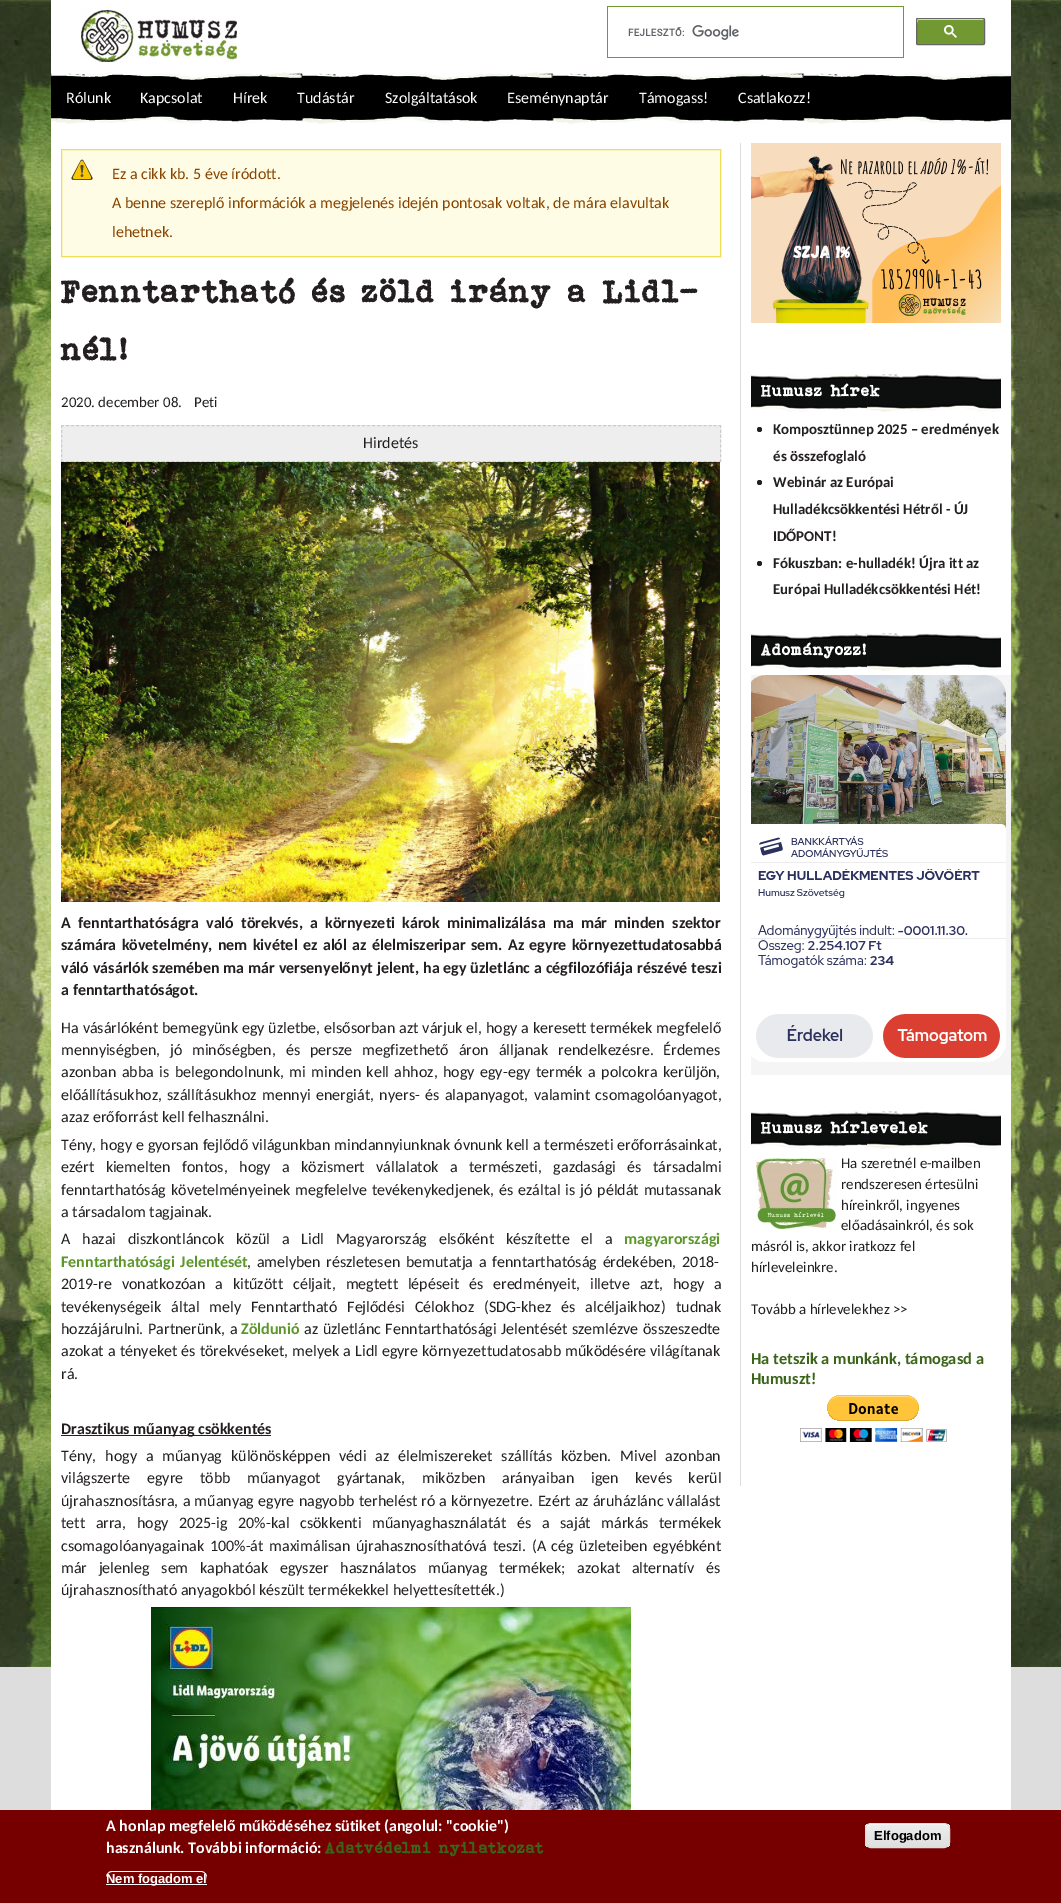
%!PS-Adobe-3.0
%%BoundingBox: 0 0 1061 1903
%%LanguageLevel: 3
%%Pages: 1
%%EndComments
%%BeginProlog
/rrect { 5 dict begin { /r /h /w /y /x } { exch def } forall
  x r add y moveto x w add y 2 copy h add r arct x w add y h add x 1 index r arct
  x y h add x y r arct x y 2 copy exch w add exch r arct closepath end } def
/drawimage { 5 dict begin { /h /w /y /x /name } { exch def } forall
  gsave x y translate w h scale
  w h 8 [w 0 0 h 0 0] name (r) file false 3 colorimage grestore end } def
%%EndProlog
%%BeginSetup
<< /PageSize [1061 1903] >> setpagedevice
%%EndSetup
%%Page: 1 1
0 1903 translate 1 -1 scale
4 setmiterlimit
0.867 setgray
0 0 1061 1903 rectfill
(images/1.raw) 0 0 1061 1667 drawimage
1 setgray
51 0 960 1810 rectfill
(images/2.raw) 81 10 156 52 drawimage
0.447 0.596 0.192 setrgbcolor
607 6 297 1 rectfill
903 6 1 52 rectfill
607 57 297 1 rectfill
607 6 1 52 rectfill
(images/3.raw) 628 25 111 15 drawimage
916 18 69 27 2 rrect fill
1 setgray
newpath 918 20 moveto 984 20 lineto 983 19 lineto 929 19 lineto 919 19 917 16 917 23 curveto closepath 917 44 moveto 917 40 lineto closepath eofill
0.4 setgray
916.5 18.5 68 26 1.5 rrect stroke
(images/4.raw) 944 25 13 13 drawimage
(images/5.raw) 51 72 960 52 drawimage
1 0.988 0.898 setrgbcolor
62 150 658 106 rectfill
(images/6.raw) 71 159 22 22 drawimage
0.933 0.867 0.333 setrgbcolor
61.5 149.5 659 107 rectstroke
0.933 setgray
61 425 660 37 rectfill
0.8 setgray
[3 2.02] 0 setdash
newpath 61 425.5 moveto 721 425.5 lineto stroke
[3 1.86] 0 setdash
newpath 720.5 425 moveto 720.5 462 lineto stroke
[3 2.02] 0 setdash
newpath 61 461.5 moveto 721 461.5 lineto stroke
[3 1.86] 0 setdash
newpath 61.5 425 moveto 61.5 462 lineto stroke
(images/7.raw) 61 462 659 440 drawimage
0.137 0.122 0.125 setrgbcolor
61 1435 210 1 rectfill
(images/8.raw) 151 1607 480 203 drawimage
0.867 setgray
740 143 1 1343 rectfill
(images/9.raw) 751 143 250 180 drawimage
(images/10.raw) 751 374 250 38 drawimage
0.137 0.122 0.125 setrgbcolor
newpath 759.5 429.5 2.5 0 360 arc closepath fill
newpath 759.5 482.5 2.5 0 360 arc closepath fill
newpath 759.5 563.5 2.5 0 360 arc closepath fill
(images/10.raw) 751 633 250 38 drawimage
(images/11.raw) 751 675 260 400 drawimage
(images/10.raw) 751 1111 250 38 drawimage
(images/12.raw) 756 1158 80 71 drawimage
(images/13.raw) 800 1395 147 47 drawimage
0.463 0 0 setrgbcolor
0 1810 1061 93 rectfill
1 setgray
newpath 112 1872 moveto 202 1872 lineto 206 1873 207 1876 207 1880 curveto 207 1877 lineto 207 1874 204 1871 201 1871 curveto 112 1871 lineto 109 1871 106 1874 106 1877 curveto 107 1874 109 1872 112 1872 curveto closepath fill
106 1884 101 1 rectfill
gsave
865 1823 85 25 6 rrect clip newpath
gsave newpath 865 1824 moveto 950 1824 lineto 950 1847 lineto 865 1847 lineto closepath clip newpath
<< /ShadingType 2 /ColorSpace /DeviceRGB /Coords [908 1824 908 1847] /Extend [true true] /Function << /FunctionType 3 /Domain [0 1] /Functions [<< /FunctionType 2 /Domain [0 1] /C0 [0.929 0.929 0.929] /C1 [0.929 0.929 0.929] /N 1 >> << /FunctionType 2 /Domain [0 1] /C0 [0.929 0.929 0.929] /C1 [0.875 0.875 0.875] /N 1 >>] /Bounds [0.05] /Encode [0 1 0 1] >> >> shfill grestore
grestore
newpath 871 1825 moveto 944 1825 lineto 947 1825 949 1827 949 1830 curveto 949 1821 938 1824 932 1824 curveto 883 1824 lineto 877 1824 866 1821 866 1830 curveto 866 1827 868 1825 871 1825 curveto closepath fill
0.863 setgray
[] 0 setdash
865.5 1823.5 84 24 5.5 rrect stroke
/Carlito-Regular [16 0 0 -16 0 0] selectfont
1 setgray
66 103 moveto (Rólunk) show
140 103 moveto (Kapcsolat) show
233 103 moveto (Hírek) show
297 103 moveto (Tudástár) show
385 103 moveto (Szolgáltatások) show
507 103 moveto (Eseménynaptár) show
639 103 moveto (Támogass!) show
738 103 moveto (Csatlakozz!) show
0.533 0.267 0 setrgbcolor
112 179 moveto (Ez a cikk kb. 5 éve íródott.) show
112 208 moveto (A benne szereplő információk a megjelenés idején pontosak voltak, de mára elavultak) show
112 237 moveto (lehetnek.) show
/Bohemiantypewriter-Bold [32 0 0 -32 0 0] selectfont
0.137 0.122 0.125 setrgbcolor
61 302 moveto (Fenntartható és zöld irány a Lidl-) show
61 360 moveto (nél!) show
/Carlito-Regular [14.9 0 0 -14.9 0 0] selectfont
61 407 moveto (2020. december 08.) show
194 407 moveto (Peti) show
/Carlito-Regular [16 0 0 -16 0 0] selectfont
363 448 moveto (Hirdetés) show
/Carlito-Bold [16 0 0 -16 0 0] selectfont
61 928 moveto 3.5 0 32 (A fenntarthatóságra való törekvés, a környezeti károk minimalizálása ma már minden szektor) widthshow
61 950 moveto 1.75 0 32 (számára követelmény, nem kivétel ez alól az élelmiszeripar sem. Az egyre környezettudatosabbá) widthshow
61 973 moveto 0.25 0 32 (váló vásárlók szemében ma már versenyelőnyt jelent, ha egy üzletlánc a cégfilozófiája részévé teszi) widthshow
61 995 moveto (a fenntarthatóságot.) show
/Carlito-Regular [16 0 0 -16 0 0] selectfont
61 1033 moveto 0.25 0 32 (Ha vásárlóként bemegyünk egy üzletbe, elsősorban azt várjuk el, hogy a keresett termékek megfelelő) widthshow
61 1055 moveto 6.25 0 32 (mennyiségben, jó minőségben, és persze megfizethető áron álljanak rendelkezésre. Érdemes) widthshow
61 1077 moveto 1.8 0 32 (azonban abba is belegondolnunk, mi minden kell ahhoz, hogy egy-egy termék a polcokra kerüljön,) widthshow
61 1100 moveto 1.75 0 32 (előállításukhoz, szállításukhoz mennyi energiát, nyers- és alapanyagot, valamint csomagolóanyagot,) widthshow
61 1122 moveto (azaz erőforrást kell felhasználni.) show
61 1150 moveto 0.25 0 32 (Tény, hogy e gyorsan fejlődő világunkban mindannyiunknak óvnunk kell a természeti erőforrásainkat,) widthshow
61 1172 moveto 7.75 0 32 (ezért kiemelten fontos, hogy a közismert vállalatok a természeti, gazdasági és társadalmi) widthshow
61 1195 moveto 1.25 0 32 (fenntarthatóság követelményeinek megfelelve tevékenykedjenek, és ezáltal is jó példát mutassanak) widthshow
61 1217 moveto (a társadalom tagjainak.) show
61 1244 moveto 8.25 0 32 (A hazai diszkontláncok közül a Lidl Magyarország elsőként készítette el a) widthshow
/Carlito-Bold [16 0 0 -16 0 0] selectfont
0.361 0.592 0.169 setrgbcolor
624 1244 moveto (magyarországi) show
61 1267 moveto 2 0 32 (Fenntarthatósági Jelentését) widthshow
/Carlito-Regular [16 0 0 -16 0 0] selectfont
0.137 0.122 0.125 setrgbcolor
247 1267 moveto 2 0 32 (, amelyben részletesen bemutatja a fenntarthatóság érdekében, 2018-) widthshow
61 1289 moveto 6.25 0 32 (2019-re vonatkozóan a kitűzött céljait, megtett lépéseit és eredményeit, illetve azt, hogy a) widthshow
61 1312 moveto 6.5 0 32 (tevékenységeik által mely Fenntartható Fejlődési Célokhoz \(SDG-khez és alcéljaikhoz\) tudnak) widthshow
61 1334 moveto 1 0 32 (hozzájárulni. Partnerünk, a) widthshow
/Carlito-Bold [16 0 0 -16 0 0] selectfont
0.361 0.592 0.169 setrgbcolor
241 1334 moveto (Zöldunió) show
/Carlito-Regular [16 0 0 -16 0 0] selectfont
0.137 0.122 0.125 setrgbcolor
304 1334 moveto 1 0 32 (az üzletlánc Fenntarthatósági Jelentését szemlézve összeszedte) widthshow
61 1356 moveto 0.5 0 32 (azokat a tényeket és törekvéseket, melyek a Lidl egyre környezettudatosabb működésére világítanak) widthshow
61 1379 moveto (rá.) show
/Carlito-Bold [16 0 0 -16 0 0] selectfont
61 1434 moveto (Drasztikus műanyag csökkentés) show
/Carlito-Regular [16 0 0 -16 0 0] selectfont
61 1461 moveto 5.25 0 32 (Tény, hogy a műanyag különösképpen védi az élelmiszereket szállítás közben. Mivel azonban) widthshow
61 1483 moveto 13 0 32 (világszerte egyre több műanyagot gyártanak, miközben arányaiban igen kevés kerül) widthshow
61 1506 moveto 0.5 0 32 (újrahasznosításra, a műanyag egyre nagyobb terhelést ró a környezetre. Ezért az áruházlánc vállalást) widthshow
61 1528 moveto 7 0 32 (tett arra, hogy 2025-ig 20%-kal csökkenti műanyaghasználatát és a saját márkás termékek) widthshow
61 1551 moveto 2 0 32 (csomagolóanyagainak 100%-át maximálisan újrahasznosíthatóvá teszi. \(A cég üzleteiben egyébként) widthshow
61 1573 moveto 8 0 32 (már jelenleg sem kaphatóak egyszer használatos műanyag termékek; azokat alternatív és) widthshow
61 1595 moveto (újrahasznosítható anyagokból készült termékekkel helyettesítették.\)) show
/Bohemiantypewriter-Bold [16.4 0 0 -16.4 0 0] selectfont
1 setgray
761 396 moveto (Humusz hírek) show
/Carlito-Bold [14.9 0 0 -14.9 0 0] selectfont
0.137 0.122 0.125 setrgbcolor
773 434 moveto (Komposztünnep 2025 – eredmények) show
773 461 moveto (és összefoglaló) show
773 487 moveto (Webinár az Európai) show
773 514 moveto (Hulladékcsökkentési Hétről - ÚJ) show
773 541 moveto (IDŐPONT!) show
773 568 moveto (Fókuszban: e-hulladék! Újra itt az) show
773 594 moveto (Európai Hulladékcsökkentési Hét!) show
/Bohemiantypewriter-Bold [16.4 0 0 -16.4 0 0] selectfont
1 setgray
761 655 moveto (Adományozz!) show
761 1133 moveto (Humusz hírlevelek) show
/Carlito-Regular [14.9 0 0 -14.9 0 0] selectfont
0.137 0.122 0.125 setrgbcolor
841 1168 moveto (Ha szeretnél e-mailben) show
841 1189 moveto (rendszeresen értesülni) show
841 1210 moveto (híreinkről, ingyenes) show
841 1230 moveto (előadásainkról, és sok) show
751 1251 moveto (másról is, akkor iratkozz fel) show
751 1272 moveto (hírleveleinkre.) show
751 1314 moveto (Tovább a hírlevelekhez >>) show
/Carlito-Bold [16.4 0 0 -16.4 0 0] selectfont
0.227 0.392 0.094 setrgbcolor
751 1364 moveto (Ha tetszik a munkánk, támogasd a) show
751 1384 moveto (Humuszt!) show
/Carlito-Bold [16 0 0 -16 0 0] selectfont
1 setgray
106 1831 moveto (A honlap megfelelő működéséhez sütiket \(angolul: "cookie"\)) show
106 1853 moveto (használunk. További információ:) show
/Bohemiantypewriter-Bold [16 0 0 -16 0 0] selectfont
0.227 0.392 0.094 setrgbcolor
325 1853 moveto (Adatvédelmi nyilatkozat) show
/LiberationSans-Bold [13 0 0 -13 0 0] selectfont
1 setgray
106 1883 moveto (Nem fogadom el) show
0 setgray
874 1840 moveto (Elfogadom) show
showpage
%%EOF
